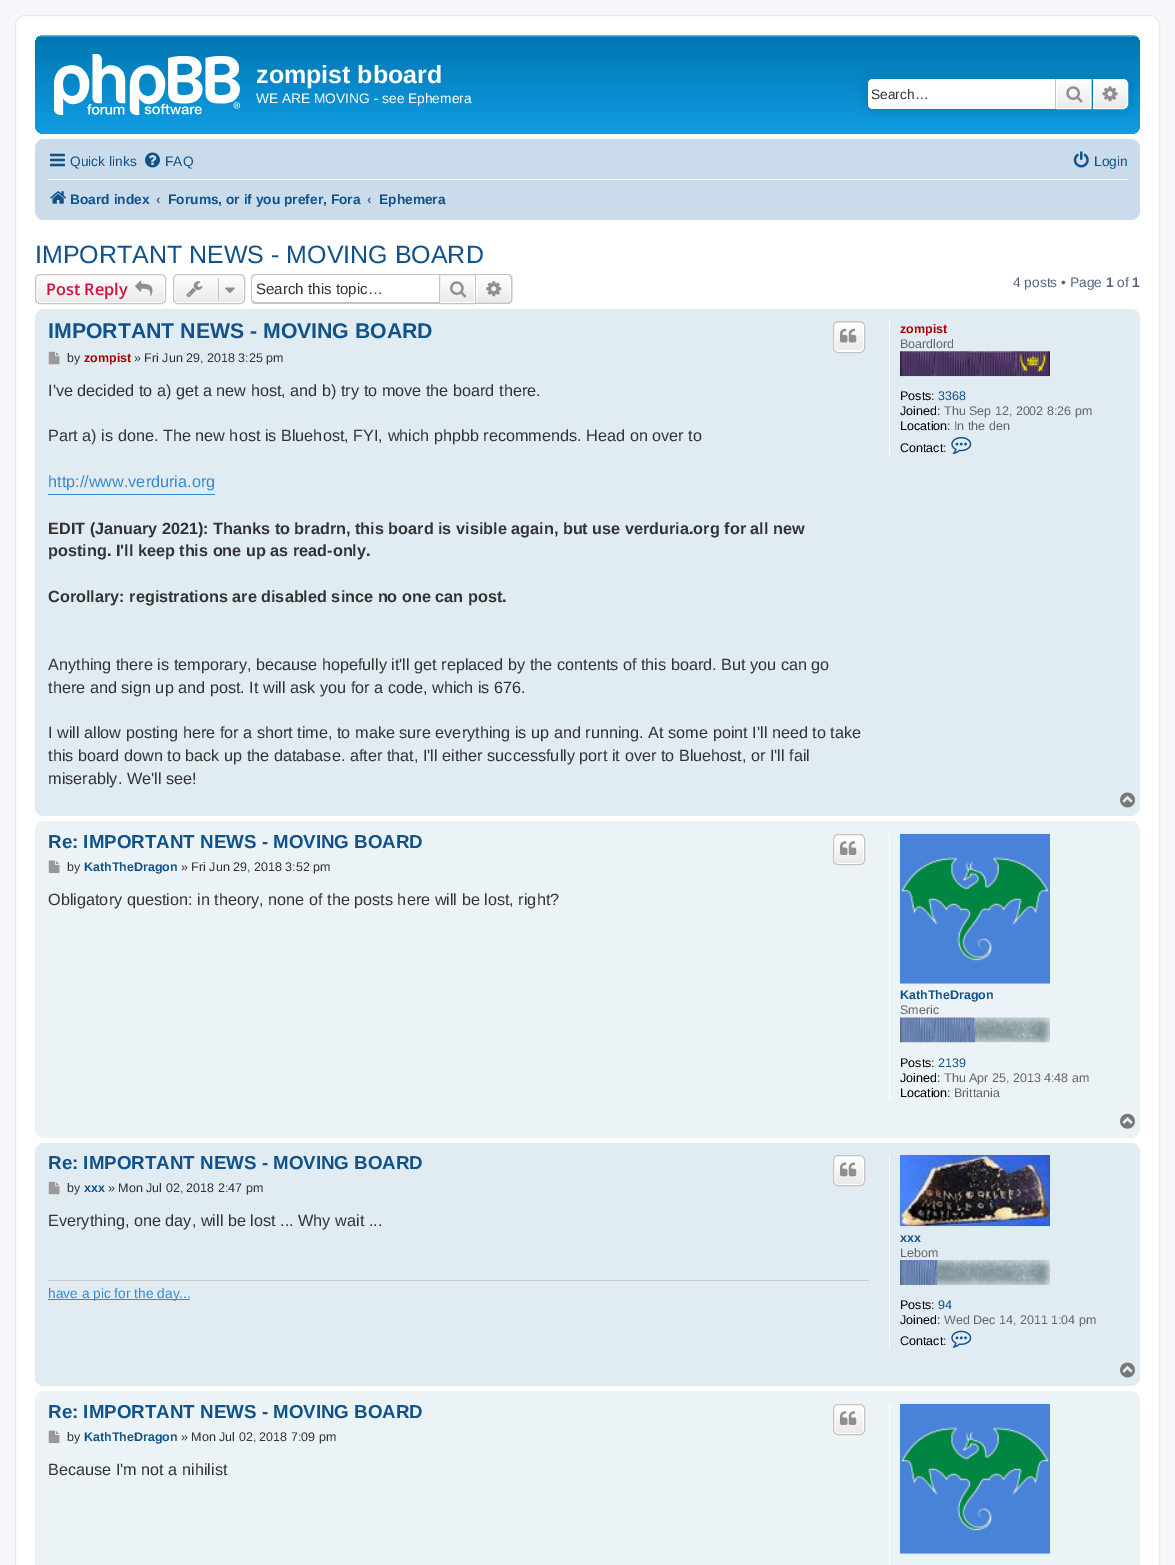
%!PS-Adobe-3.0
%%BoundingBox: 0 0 1175 1565
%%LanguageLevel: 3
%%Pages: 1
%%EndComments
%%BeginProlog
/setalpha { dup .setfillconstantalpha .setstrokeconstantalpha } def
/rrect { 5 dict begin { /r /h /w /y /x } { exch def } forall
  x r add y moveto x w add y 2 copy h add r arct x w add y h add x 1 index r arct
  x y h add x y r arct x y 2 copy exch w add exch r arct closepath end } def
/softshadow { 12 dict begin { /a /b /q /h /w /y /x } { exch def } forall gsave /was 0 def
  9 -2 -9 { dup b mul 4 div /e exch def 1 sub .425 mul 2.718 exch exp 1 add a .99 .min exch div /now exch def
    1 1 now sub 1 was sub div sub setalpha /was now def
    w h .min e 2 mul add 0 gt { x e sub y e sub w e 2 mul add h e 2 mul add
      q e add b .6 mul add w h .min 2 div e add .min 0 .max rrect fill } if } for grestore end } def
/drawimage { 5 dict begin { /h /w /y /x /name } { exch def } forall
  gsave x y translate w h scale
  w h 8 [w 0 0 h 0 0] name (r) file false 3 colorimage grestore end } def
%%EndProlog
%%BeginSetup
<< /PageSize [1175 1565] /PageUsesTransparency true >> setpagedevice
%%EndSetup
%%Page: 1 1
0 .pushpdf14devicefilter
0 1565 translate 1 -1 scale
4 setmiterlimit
0.961 0.969 0.98 setrgbcolor
0 0 1175 1565 rectfill
1 setgray
15.5 15.5 1144 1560 9.5 rrect gsave fill grestore
0.902 0.914 0.929 setrgbcolor
stroke
gsave 35 35 1105 99 9 rrect clip newpath
<< /ShadingType 2 /ColorSpace /DeviceRGB /Coords [588 35 588 150] /Extend [true true] /Function << /FunctionType 3 /Domain [0 1] /Functions [<< /FunctionType 2 /Domain [0 1] /C0 [0.416 0.808 1] /C1 [0 0.463 0.694] /N 1 >> << /FunctionType 2 /Domain [0 1] /C0 [0 0.463 0.694] /C1 [0.071 0.639 0.922] /N 1 >>] /Bounds [0.02] /Encode [0 1 0 1] >> >> shfill grestore
(images/1.raw) 54 54 186 61 drawimage
0 0.459 0.69 setrgbcolor
868 79 260 30 5 6 1 softshadow
1 setgray
newpath 873 79 moveto 1055 79 lineto 1055 109 lineto 873 109 lineto 870 109 868 107 868 104 curveto 868 84 lineto 868 81 870 79 873 79 curveto closepath fill
gsave newpath 1057 80 moveto 1090 80 lineto 1090 108 lineto 1057 108 lineto closepath clip newpath
<< /ShadingType 2 /ColorSpace /DeviceRGB /Coords [1074 79 1074 109] /Extend [true true] /Function << /FunctionType 2 /Domain [0 1] /C0 [1 1 1] /C1 [0.914 0.914 0.914] /N 1 >> >> shfill grestore
1056.5 79.5 34 29 rectstroke
0.78 0.765 0.749 setrgbcolor
1091 79 1 30 rectfill
1055 79 1 30 rectfill
(images/2.raw) 1066 86 17 17 drawimage
gsave newpath 1093.5 79.5 moveto 1123 79.5 lineto 1125.5 79.5 1127.5 81.5 1127.5 84 curveto 1127.5 104 lineto 1127.5 106.5 1125.5 108.5 1123 108.5 curveto 1093.5 108.5 lineto closepath clip newpath
<< /ShadingType 2 /ColorSpace /DeviceRGB /Coords [1110 79 1110 109] /Extend [true true] /Function << /FunctionType 2 /Domain [0 1] /C0 [1 1 1] /C1 [0.914 0.914 0.914] /N 1 >> >> shfill grestore
1 setgray
newpath 1093.5 79.5 moveto 1123 79.5 lineto 1125.5 79.5 1127.5 81.5 1127.5 84 curveto 1127.5 104 lineto 1127.5 106.5 1125.5 108.5 1123 108.5 curveto 1093.5 108.5 lineto closepath stroke
(images/3.raw) 1102 86 16 16 drawimage
0.792 0.863 0.922 setrgbcolor
35 139 1105 81 9 rrect fill
(images/4.raw) 50 153 15 14 drawimage
(images/5.raw) 145 152 15 16 drawimage
(images/6.raw) 1073 151 16 17 drawimage
1 setgray
48 179 1080 1 rectfill
(images/7.raw) 50 191 16 13 drawimage
gsave
35 274 131 30 5 rrect clip newpath
gsave newpath 35 275 moveto 166 275 lineto 166 303 lineto 35 303 lineto closepath clip newpath
<< /ShadingType 2 /ColorSpace /DeviceRGB /Coords [101 275 101 303] /Extend [true true] /Function << /FunctionType 2 /Domain [0 1] /C0 [1 1 1] /C1 [0.914 0.914 0.914] /N 1 >> >> shfill grestore
grestore
36.5 275.5 128 27 3.5 rrect stroke
0.78 0.765 0.749 setrgbcolor
35.5 274.5 130 29 4.5 rrect stroke
(images/8.raw) 135 280 18 17 drawimage
gsave
173 274 72 30 5 rrect clip newpath
gsave newpath 173 275 moveto 245 275 lineto 245 303 lineto 173 303 lineto closepath clip newpath
<< /ShadingType 2 /ColorSpace /DeviceRGB /Coords [209 275 209 303] /Extend [true true] /Function << /FunctionType 2 /Domain [0 1] /C0 [1 1 1] /C1 [0.914 0.914 0.914] /N 1 >> >> shfill grestore
grestore
1 setgray
174.5 275.5 69 27 3.5 rrect stroke
0.78 0.765 0.749 setrgbcolor
173.5 274.5 71 29 4.5 rrect stroke
(images/9.raw) 186 281 17 17 drawimage
218 278 1 22 rectfill
(images/10.raw) 225 287 10 6 drawimage
newpath 256 274 moveto 439 274 lineto 439 304 lineto 256 304 lineto 253 304 251 302 251 299 curveto 251 279 lineto 251 276 253 274 256 274 curveto closepath 256 275 moveto 439 275 lineto 439 302 lineto 256 302 lineto 254 302 252 301 252 299 curveto 252 279 lineto 252 277 254 275 256 275 curveto closepath eofill
gsave newpath 441 278 moveto 474 278 lineto 474 302 lineto 441 302 lineto closepath clip newpath
<< /ShadingType 2 /ColorSpace /DeviceRGB /Coords [458 275 458 303] /Extend [true true] /Function << /FunctionType 2 /Domain [0 1] /C0 [1 1 1] /C1 [0.914 0.914 0.914] /N 1 >> >> shfill grestore
439.5 274.5 36 29 rectstroke
(images/11.raw) 450 281 17 17 drawimage
gsave newpath 476.5 275.5 moveto 507 275.5 lineto 509 275.5 510.5 277 510.5 279 curveto 510.5 299 lineto 510.5 301 509 302.5 507 302.5 curveto 476.5 302.5 lineto closepath clip newpath
<< /ShadingType 2 /ColorSpace /DeviceRGB /Coords [494 275 494 303] /Extend [true true] /Function << /FunctionType 2 /Domain [0 1] /C0 [1 1 1] /C1 [0.914 0.914 0.914] /N 1 >> >> shfill grestore
1 setgray
newpath 476.5 275.5 moveto 507 275.5 lineto 509 275.5 510.5 277 510.5 279 curveto 510.5 299 lineto 510.5 301 509 302.5 507 302.5 curveto 476.5 302.5 lineto closepath stroke
0.78 0.765 0.749 setrgbcolor
newpath 476 274 moveto 507.5 274 lineto 510.5 274 512.5 276 512.5 279 curveto 512.5 299 lineto 512.5 301.5 510.5 304 507.5 304 curveto 476 304 lineto closepath 476 275 moveto 507.5 275 lineto 509.5 275 511 276.5 511 279 curveto 511 299 lineto 511 301 509.5 302.5 507.5 302.5 curveto 476 302.5 lineto closepath eofill
(images/12.raw) 486 281 16 16 drawimage
0.882 0.922 0.949 setrgbcolor
35 309 1105 507 9 rrect fill
gsave
833 321 32 32 5 rrect clip newpath
gsave newpath 833 321 moveto 865 321 lineto 865 323 lineto 833 323 lineto closepath clip newpath
<< /ShadingType 2 /ColorSpace /DeviceRGB /Coords [849 294 849 323] /Extend [true true] /Function << /FunctionType 2 /Domain [0 1] /C0 [1 1 1] /C1 [0.914 0.914 0.914] /N 1 >> >> shfill grestore
gsave newpath 833 323 moveto 865 323 lineto 865 351 lineto 833 351 lineto closepath clip newpath
<< /ShadingType 2 /ColorSpace /DeviceRGB /Coords [849 323 849 351] /Extend [true true] /Function << /FunctionType 2 /Domain [0 1] /C0 [1 1 1] /C1 [0.914 0.914 0.914] /N 1 >> >> shfill grestore
gsave newpath 833 351 moveto 865 351 lineto 865 353 lineto 833 353 lineto closepath clip newpath
<< /ShadingType 2 /ColorSpace /DeviceRGB /Coords [849 351 849 380] /Extend [true true] /Function << /FunctionType 2 /Domain [0 1] /C0 [1 1 1] /C1 [0.914 0.914 0.914] /N 1 >> >> shfill grestore
grestore
1 setgray
834.5 323.5 29 27 3.5 rrect stroke
0.78 0.765 0.749 setrgbcolor
833.5 321.5 31 31 4.5 rrect stroke
(images/13.raw) 840 328 17 15 drawimage
(images/14.raw) 48 351 12 14 drawimage
0.212 0.541 0.824 setrgbcolor
48 494 167 1 rectfill
1 setgray
889 321 1 134 rectfill
(images/15.raw) 900 351 150 26 drawimage
(images/16.raw) 951 437 21 18 drawimage
(images/17.raw) 1120 792 15 16 drawimage
0.925 0.953 0.969 setrgbcolor
35 821 1105 317 9 rrect fill
gsave
833 834 32 31 5 rrect clip newpath
gsave newpath 833 835 moveto 865 835 lineto 865 864 lineto 833 864 lineto closepath clip newpath
<< /ShadingType 2 /ColorSpace /DeviceRGB /Coords [849 835 849 864] /Extend [true true] /Function << /FunctionType 2 /Domain [0 1] /C0 [1 1 1] /C1 [0.914 0.914 0.914] /N 1 >> >> shfill grestore
grestore
1 setgray
834.5 835.5 29 28 3.5 rrect stroke
0.78 0.765 0.749 setrgbcolor
833.5 834.5 31 30 4.5 rrect stroke
(images/18.raw) 840 841 17 14 drawimage
(images/19.raw) 48 860 12 14 drawimage
1 setgray
889 834 1 266 rectfill
(images/20.raw) 900 833 150 151 drawimage
(images/21.raw) 900 1017 150 26 drawimage
(images/22.raw) 1120 1113 15 16 drawimage
0.882 0.922 0.949 setrgbcolor
35 1143 1105 243 9 rrect fill
gsave
833 1155 32 31 5 rrect clip newpath
gsave newpath 833 1156 moveto 865 1156 lineto 865 1185 lineto 833 1185 lineto closepath clip newpath
<< /ShadingType 2 /ColorSpace /DeviceRGB /Coords [849 1156 849 1185] /Extend [true true] /Function << /FunctionType 2 /Domain [0 1] /C0 [1 1 1] /C1 [0.914 0.914 0.914] /N 1 >> >> shfill grestore
grestore
1 setgray
834.5 1156.5 29 28 3.5 rrect stroke
0.78 0.765 0.749 setrgbcolor
833.5 1155.5 31 30 4.5 rrect stroke
(images/23.raw) 840 1162 17 15 drawimage
(images/14.raw) 48 1181 12 14 drawimage
0.8 setgray
48 1280 821 1 rectfill
0.212 0.541 0.824 setrgbcolor
48 1299 142 1 rectfill
1 setgray
889 1155 1 194 rectfill
(images/24.raw) 900 1155 150 72 drawimage
(images/25.raw) 900 1260 150 25 drawimage
(images/26.raw) 951 1330 21 18 drawimage
(images/17.raw) 1120 1362 15 16 drawimage
0.925 0.953 0.969 setrgbcolor
35 1391 1105 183 9 rrect fill
gsave
833 1404 32 31 5 rrect clip newpath
gsave newpath 833 1405 moveto 865 1405 lineto 865 1434 lineto 833 1434 lineto closepath clip newpath
<< /ShadingType 2 /ColorSpace /DeviceRGB /Coords [849 1405 849 1434] /Extend [true true] /Function << /FunctionType 2 /Domain [0 1] /C0 [1 1 1] /C1 [0.914 0.914 0.914] /N 1 >> >> shfill grestore
grestore
1 setgray
834.5 1405.5 29 28 3.5 rrect stroke
0.78 0.765 0.749 setrgbcolor
833.5 1404.5 31 30 4.5 rrect stroke
(images/18.raw) 840 1411 17 14 drawimage
(images/19.raw) 48 1430 12 14 drawimage
1 setgray
889 1404 1 161 rectfill
(images/20.raw) 900 1403 150 151 drawimage
/LiberationSans-Bold [25 0 0 -25 0 0] selectfont
256 83 moveto (zompist bboard) show
/LiberationSans-Regular [13.75 0 0 -13.75 0 0] selectfont
256 103 moveto (WE ARE MOVING - see Ephemera) show
0.2 setgray
871 99 moveto (Search…) show
0.063 0.322 0.537 setrgbcolor
70 166 moveto (Quick links) show
165 166 moveto (FAQ) show
1094 166 moveto (Login) show
/LiberationSans-Bold [13.75 0 0 -13.75 0 0] selectfont
70 204 moveto (Board index) show
0.325 0.392 0.51 setrgbcolor
156 204 moveto (‹) show
0.063 0.322 0.537 setrgbcolor
168 204 moveto (Forums, or if you prefer, Fora) show
0.325 0.392 0.51 setrgbcolor
367 204 moveto (‹) show
0.063 0.322 0.537 setrgbcolor
379 204 moveto (Ephemera) show
/LiberationSans-Regular [25 0 0 -25 0 0] selectfont
35 263 moveto (IMPORTANT NEWS - MOVING BOARD) show
/OpenSans-SemiBold [16.25 0 0 -16.25 0 0] selectfont
0.827 0.067 0.255 setrgbcolor
46 295 moveto (Post Reply) show
/LiberationSans-Regular [15.1 0 0 -15.1 0 0] selectfont
0.2 setgray
256 294 moveto (Search this topic…) show
/LiberationSans-Regular [13.75 0 0 -13.75 0 0] selectfont
0.325 0.392 0.51 setrgbcolor
1013 287 moveto (4 posts • Page) show
/LiberationSans-Bold [13.75 0 0 -13.75 0 0] selectfont
1106 287 moveto (1) show
/LiberationSans-Regular [13.75 0 0 -13.75 0 0] selectfont
1117 287 moveto (of) show
/LiberationSans-Bold [13.75 0 0 -13.75 0 0] selectfont
1132 287 moveto (1) show
/LiberationSans-Bold [21.25 0 0 -21.25 0 0] selectfont
0.063 0.322 0.537 setrgbcolor
48 338 moveto (IMPORTANT NEWS - MOVING BOARD) show
/LiberationSans-Regular [12.5 0 0 -12.5 0 0] selectfont
0.2 setgray
67 362 moveto (by) show
/LiberationSans-Bold [12.5 0 0 -12.5 0 0] selectfont
0.667 0 0 setrgbcolor
84 362 moveto (zompist) show
/LiberationSans-Regular [12.5 0 0 -12.5 0 0] selectfont
0.2 setgray
134 362 moveto (» Fri Jun 29, 2018 3:25 pm) show
/LiberationSans-Regular [16.25 0 0 -16.25 0 0] selectfont
48 396 moveto (I've decided to a\) get a new host, and b\) try to move the board there.) show
48 441 moveto (Part a\) is done. The new host is Bluehost, FYI, which phpbb recommends. Head on over to) show
0.212 0.541 0.824 setrgbcolor
48 487 moveto (http://www.verduria.org) show
/LiberationSans-Bold [16.25 0 0 -16.25 0 0] selectfont
0.2 setgray
48 534 moveto (EDIT \(January 2021\): Thanks to bradrn, this board is visible again, but use verduria.org for all new) show
48 556 moveto (posting. I'll keep this one up as read-only.) show
48 602 moveto (Corollary: registrations are disabled since no one can post.) show
/LiberationSans-Regular [16.25 0 0 -16.25 0 0] selectfont
48 670 moveto (Anything there is temporary, because hopefully it'll get replaced by the contents of this board. But you can go) show
48 693 moveto (there and sign up and post. It will ask you for a code, which is 676.) show
48 738 moveto (I will allow posting here for a short time, to make sure everything is up and running. At some point I'll need to take) show
48 761 moveto (this board down to back up the database. after that, I'll either successfully port it over to Bluehost, or I'll fail) show
48 784 moveto (miserably. We'll see!) show
/LiberationSans-Bold [12.5 0 0 -12.5 0 0] selectfont
0.667 0 0 setrgbcolor
900 333 moveto (zompist) show
/LiberationSans-Regular [12.5 0 0 -12.5 0 0] selectfont
0.4 setgray
900 348 moveto (Boardlord) show
0 setgray
900 400 moveto (Posts:) show
0.063 0.322 0.537 setrgbcolor
938 400 moveto (3368) show
0 setgray
900 415 moveto (Joined:) show
0.4 setgray
944 415 moveto (Thu Sep 12, 2002 8:26 pm) show
0 setgray
900 430 moveto (Location:) show
0.4 setgray
954 430 moveto (In the den) show
0 setgray
900 452 moveto (Contact:) show
/LiberationSans-Bold [18.75 0 0 -18.75 0 0] selectfont
0.063 0.322 0.537 setrgbcolor
48 848 moveto (Re: IMPORTANT NEWS - MOVING BOARD) show
/LiberationSans-Regular [12.5 0 0 -12.5 0 0] selectfont
0.2 setgray
67 871 moveto (by) show
/LiberationSans-Bold [12.5 0 0 -12.5 0 0] selectfont
0.063 0.322 0.537 setrgbcolor
84 871 moveto (KathTheDragon) show
/LiberationSans-Regular [12.5 0 0 -12.5 0 0] selectfont
0.2 setgray
181 871 moveto (» Fri Jun 29, 2018 3:52 pm) show
/LiberationSans-Regular [16.25 0 0 -16.25 0 0] selectfont
48 905 moveto (Obligatory question: in theory, none of the posts here will be lost, right?) show
/LiberationSans-Bold [12.5 0 0 -12.5 0 0] selectfont
0.063 0.322 0.537 setrgbcolor
900 999 moveto (KathTheDragon) show
/LiberationSans-Regular [12.5 0 0 -12.5 0 0] selectfont
0.4 setgray
900 1014 moveto (Smeric) show
0 setgray
900 1067 moveto (Posts:) show
0.063 0.322 0.537 setrgbcolor
938 1067 moveto (2139) show
0 setgray
900 1082 moveto (Joined:) show
0.4 setgray
944 1082 moveto (Thu Apr 25, 2013 4:48 am) show
0 setgray
900 1097 moveto (Location:) show
0.4 setgray
954 1097 moveto (Brittania) show
/LiberationSans-Bold [18.75 0 0 -18.75 0 0] selectfont
0.063 0.322 0.537 setrgbcolor
48 1169 moveto (Re: IMPORTANT NEWS - MOVING BOARD) show
/LiberationSans-Regular [12.5 0 0 -12.5 0 0] selectfont
0.2 setgray
67 1192 moveto (by) show
/LiberationSans-Bold [12.5 0 0 -12.5 0 0] selectfont
0.063 0.322 0.537 setrgbcolor
84 1192 moveto (xxx) show
/LiberationSans-Regular [12.5 0 0 -12.5 0 0] selectfont
0.2 setgray
108 1192 moveto (» Mon Jul 02, 2018 2:47 pm) show
/LiberationSans-Regular [16.25 0 0 -16.25 0 0] selectfont
48 1226 moveto (Everything, one day, will be lost ... Why wait ...) show
/LiberationSans-Regular [13.75 0 0 -13.75 0 0] selectfont
0.212 0.541 0.824 setrgbcolor
48 1298 moveto (have a pic for the day...) show
/LiberationSans-Bold [12.5 0 0 -12.5 0 0] selectfont
0.063 0.322 0.537 setrgbcolor
900 1242 moveto (xxx) show
/LiberationSans-Regular [12.5 0 0 -12.5 0 0] selectfont
0.4 setgray
900 1257 moveto (Lebom) show
0 setgray
900 1309 moveto (Posts:) show
0.063 0.322 0.537 setrgbcolor
938 1309 moveto (94) show
0 setgray
900 1324 moveto (Joined:) show
0.4 setgray
944 1324 moveto (Wed Dec 14, 2011 1:04 pm) show
0 setgray
900 1345 moveto (Contact:) show
/LiberationSans-Bold [18.75 0 0 -18.75 0 0] selectfont
0.063 0.322 0.537 setrgbcolor
48 1418 moveto (Re: IMPORTANT NEWS - MOVING BOARD) show
/LiberationSans-Regular [12.5 0 0 -12.5 0 0] selectfont
0.2 setgray
67 1441 moveto (by) show
/LiberationSans-Bold [12.5 0 0 -12.5 0 0] selectfont
0.063 0.322 0.537 setrgbcolor
84 1441 moveto (KathTheDragon) show
/LiberationSans-Regular [12.5 0 0 -12.5 0 0] selectfont
0.2 setgray
181 1441 moveto (» Mon Jul 02, 2018 7:09 pm) show
/LiberationSans-Regular [16.25 0 0 -16.25 0 0] selectfont
48 1475 moveto (Because I'm not a nihilist) show
.poppdf14devicefilter showpage
%%EOF
